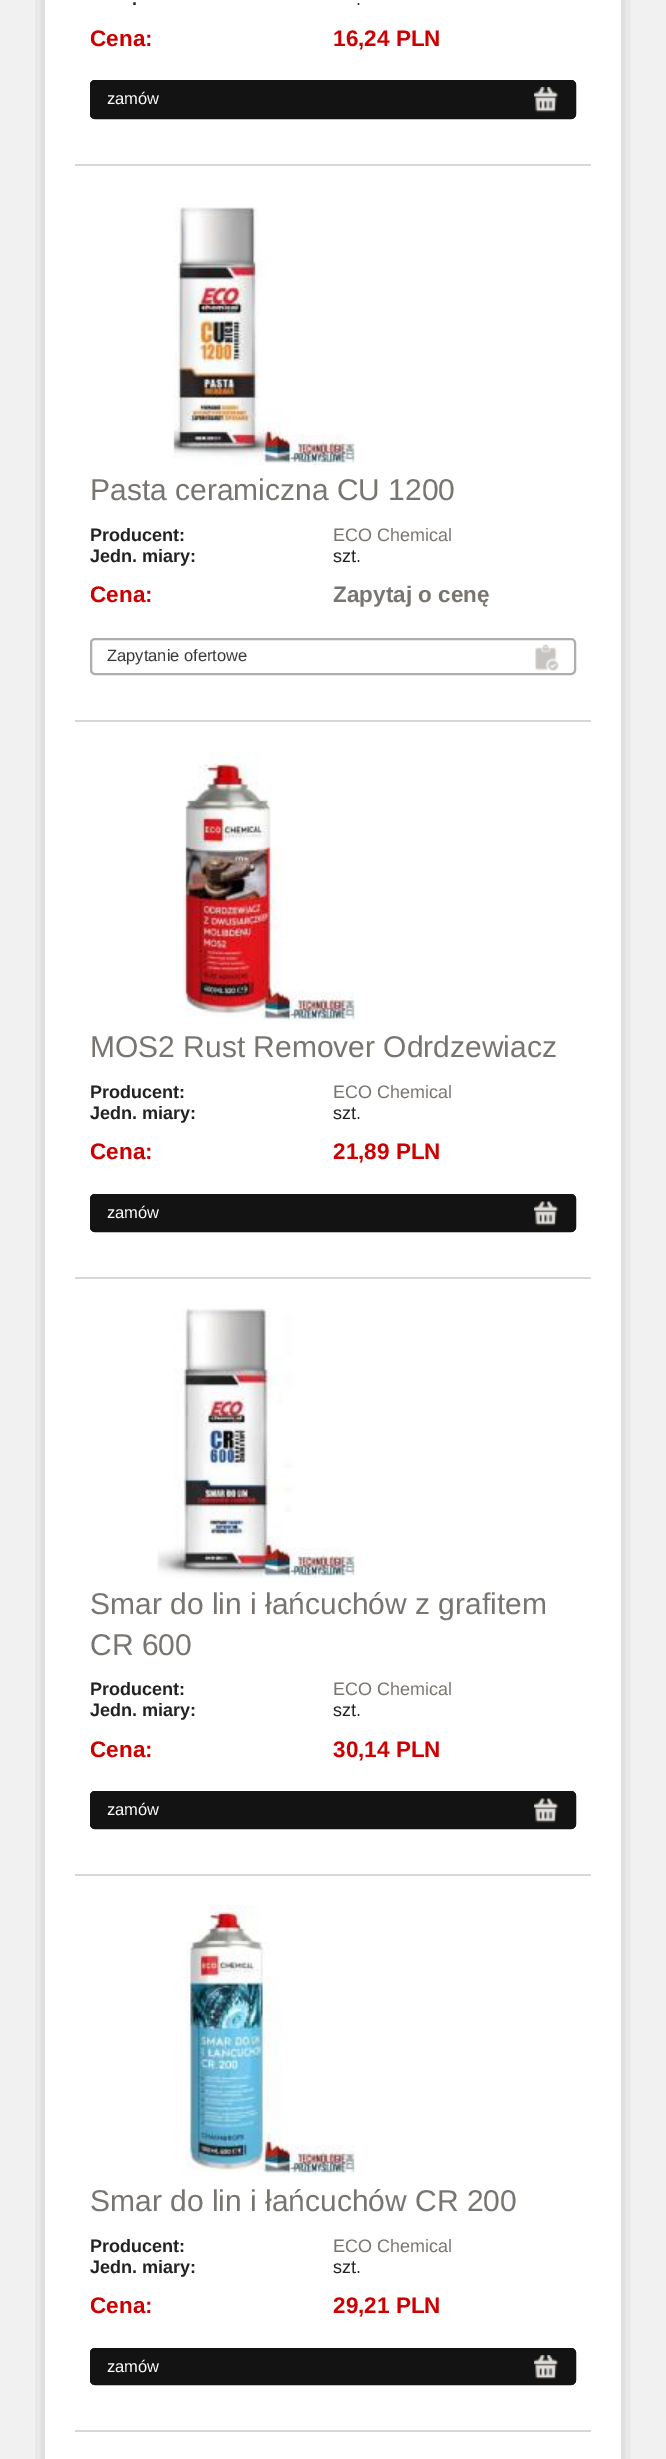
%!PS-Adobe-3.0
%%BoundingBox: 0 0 666 2459
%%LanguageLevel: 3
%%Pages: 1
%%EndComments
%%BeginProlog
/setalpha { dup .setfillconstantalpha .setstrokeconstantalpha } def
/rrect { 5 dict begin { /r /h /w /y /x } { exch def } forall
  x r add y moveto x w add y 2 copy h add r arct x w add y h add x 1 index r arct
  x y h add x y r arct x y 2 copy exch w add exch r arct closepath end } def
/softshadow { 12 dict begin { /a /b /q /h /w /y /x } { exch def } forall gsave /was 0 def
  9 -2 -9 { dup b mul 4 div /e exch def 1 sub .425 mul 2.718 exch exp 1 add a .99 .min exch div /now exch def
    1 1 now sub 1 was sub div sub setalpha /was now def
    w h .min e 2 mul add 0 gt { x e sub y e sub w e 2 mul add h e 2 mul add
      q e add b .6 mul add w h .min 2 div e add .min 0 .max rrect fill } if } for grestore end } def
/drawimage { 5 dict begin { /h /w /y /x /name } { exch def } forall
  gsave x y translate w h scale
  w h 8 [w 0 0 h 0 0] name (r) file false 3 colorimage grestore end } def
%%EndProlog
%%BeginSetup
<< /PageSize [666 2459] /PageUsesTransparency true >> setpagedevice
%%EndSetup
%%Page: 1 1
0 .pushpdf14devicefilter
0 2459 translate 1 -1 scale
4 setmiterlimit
0.949 0.945 0.945 setrgbcolor
0 0 666 2459 rectfill
0 setgray
60 -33 546 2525 0 11 1 softshadow
1 setgray
45 0 576 2459 rectfill
0.847 setgray
75 164 516 2 rectfill
0.078 0.075 0.075 setrgbcolor
90 80 486 39 5 rrect fill
(images/1.raw) 534 87 25 26 drawimage
2 setlinewidth
91 81 484 37 4 rrect stroke
0.847 setgray
75 720 516 2 rectfill
(images/2.raw) 173 207 182 258 drawimage
(images/3.raw) 535 644 24 27 drawimage
0.69 0.682 0.675 setrgbcolor
91 639 484 35 4 rrect stroke
0.847 setgray
75 1277 516 2 rectfill
(images/4.raw) 183 752 172 270 drawimage
0.078 0.075 0.075 setrgbcolor
90 1194 486 38 5 rrect fill
(images/5.raw) 534 1201 25 25 drawimage
91 1195 484 36 4 rrect stroke
0.847 setgray
75 1874 516 2 rectfill
(images/6.raw) 157 1308 198 270 drawimage
0.078 0.075 0.075 setrgbcolor
90 1791 486 38 5 rrect fill
(images/5.raw) 534 1798 25 25 drawimage
91 1792 484 36 4 rrect stroke
0.847 setgray
75 2430 516 2 rectfill
(images/7.raw) 185 1905 170 270 drawimage
0.078 0.075 0.075 setrgbcolor
90 2348 486 37 5 rrect fill
(images/8.raw) 534 2355 25 24 drawimage
91 2349 484 35 4 rrect stroke
/LiberationSans-Bold [18 0 0 -18 0 0] selectfont
0.133 setgray
132 5 moveto (.) show
/LiberationSans-Regular [18 0 0 -18 0 0] selectfont
356 5 moveto (.) show
/LiberationSans-Bold [22.5 0 0 -22.5 0 0] selectfont
0.8 0 0 setrgbcolor
90 46 moveto (Cena:) show
333 46 moveto (16,24 PLN) show
/LiberationSans-Regular [16.5 0 0 -16.5 0 0] selectfont
1 setgray
107 104 moveto (zamów) show
/LiberationSans-Regular [30 0 0 -30 0 0] selectfont
0.471 0.455 0.439 setrgbcolor
90 500 moveto (Pasta ceramiczna CU 1200) show
/LiberationSans-Bold [18 0 0 -18 0 0] selectfont
0.133 setgray
90 541 moveto (Producent:) show
/LiberationSans-Regular [18 0 0 -18 0 0] selectfont
0.471 0.455 0.439 setrgbcolor
333 541 moveto (ECO Chemical) show
/LiberationSans-Bold [18 0 0 -18 0 0] selectfont
0.133 setgray
90 562 moveto (Jedn. miary:) show
/LiberationSans-Regular [18 0 0 -18 0 0] selectfont
333 562 moveto (szt.) show
/LiberationSans-Bold [22.5 0 0 -22.5 0 0] selectfont
0.8 0 0 setrgbcolor
90 602 moveto (Cena:) show
0.471 0.455 0.439 setrgbcolor
333 602 moveto (Zapytaj o cenę) show
/LiberationSans-Regular [16.5 0 0 -16.5 0 0] selectfont
0.227 0.224 0.22 setrgbcolor
107 661 moveto (Zapytanie ofertowe) show
/LiberationSans-Regular [30 0 0 -30 0 0] selectfont
0.471 0.455 0.439 setrgbcolor
90 1057 moveto (MOS2 Rust Remover Odrdzewiacz) show
/LiberationSans-Bold [18 0 0 -18 0 0] selectfont
0.133 setgray
90 1098 moveto (Producent:) show
/LiberationSans-Regular [18 0 0 -18 0 0] selectfont
0.471 0.455 0.439 setrgbcolor
333 1098 moveto (ECO Chemical) show
/LiberationSans-Bold [18 0 0 -18 0 0] selectfont
0.133 setgray
90 1119 moveto (Jedn. miary:) show
/LiberationSans-Regular [18 0 0 -18 0 0] selectfont
333 1119 moveto (szt.) show
/LiberationSans-Bold [22.5 0 0 -22.5 0 0] selectfont
0.8 0 0 setrgbcolor
90 1159 moveto (Cena:) show
333 1159 moveto (21,89 PLN) show
/LiberationSans-Regular [16.5 0 0 -16.5 0 0] selectfont
1 setgray
107 1218 moveto (zamów) show
/LiberationSans-Regular [30 0 0 -30 0 0] selectfont
0.471 0.455 0.439 setrgbcolor
90 1614 moveto (Smar do lin i łańcuchów z grafitem) show
90 1655 moveto (CR 600) show
/LiberationSans-Bold [18 0 0 -18 0 0] selectfont
0.133 setgray
90 1695 moveto (Producent:) show
/LiberationSans-Regular [18 0 0 -18 0 0] selectfont
0.471 0.455 0.439 setrgbcolor
333 1695 moveto (ECO Chemical) show
/LiberationSans-Bold [18 0 0 -18 0 0] selectfont
0.133 setgray
90 1716 moveto (Jedn. miary:) show
/LiberationSans-Regular [18 0 0 -18 0 0] selectfont
333 1716 moveto (szt.) show
/LiberationSans-Bold [22.5 0 0 -22.5 0 0] selectfont
0.8 0 0 setrgbcolor
90 1757 moveto (Cena:) show
333 1757 moveto (30,14 PLN) show
/LiberationSans-Regular [16.5 0 0 -16.5 0 0] selectfont
1 setgray
107 1815 moveto (zamów) show
/LiberationSans-Regular [30 0 0 -30 0 0] selectfont
0.471 0.455 0.439 setrgbcolor
90 2211 moveto (Smar do lin i łańcuchów CR 200) show
/LiberationSans-Bold [18 0 0 -18 0 0] selectfont
0.133 setgray
90 2252 moveto (Producent:) show
/LiberationSans-Regular [18 0 0 -18 0 0] selectfont
0.471 0.455 0.439 setrgbcolor
333 2252 moveto (ECO Chemical) show
/LiberationSans-Bold [18 0 0 -18 0 0] selectfont
0.133 setgray
90 2273 moveto (Jedn. miary:) show
/LiberationSans-Regular [18 0 0 -18 0 0] selectfont
333 2273 moveto (szt.) show
/LiberationSans-Bold [22.5 0 0 -22.5 0 0] selectfont
0.8 0 0 setrgbcolor
90 2313 moveto (Cena:) show
333 2313 moveto (29,21 PLN) show
/LiberationSans-Regular [16.5 0 0 -16.5 0 0] selectfont
1 setgray
107 2372 moveto (zamów) show
.poppdf14devicefilter showpage
%%EOF
